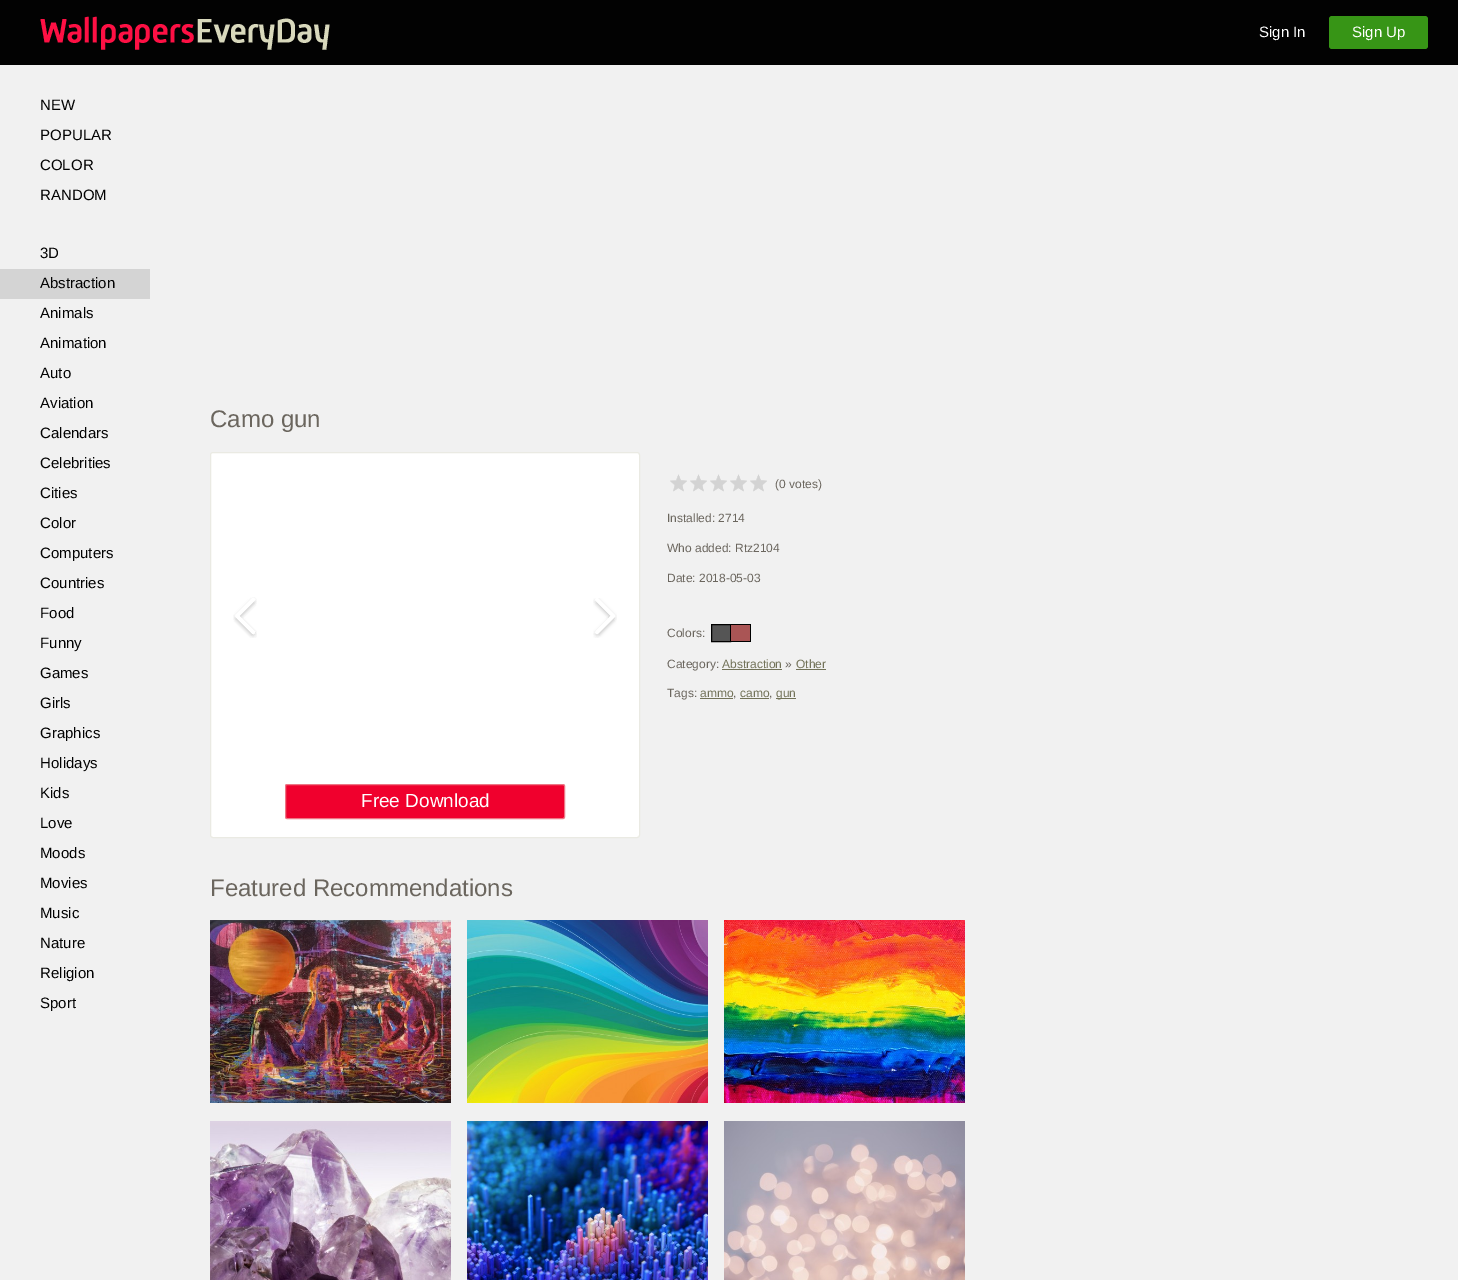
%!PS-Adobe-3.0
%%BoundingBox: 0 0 1458 1280
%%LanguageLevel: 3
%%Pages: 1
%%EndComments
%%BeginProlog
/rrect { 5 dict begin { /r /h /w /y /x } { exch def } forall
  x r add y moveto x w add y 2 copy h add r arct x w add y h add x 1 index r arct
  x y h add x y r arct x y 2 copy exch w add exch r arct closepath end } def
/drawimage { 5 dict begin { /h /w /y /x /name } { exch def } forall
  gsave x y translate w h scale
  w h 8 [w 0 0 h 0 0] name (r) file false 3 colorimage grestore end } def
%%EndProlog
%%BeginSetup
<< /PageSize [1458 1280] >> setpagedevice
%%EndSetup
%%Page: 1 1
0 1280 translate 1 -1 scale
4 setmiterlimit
0.945 setgray
0 0 1458 1280 rectfill
0.008 setgray
0 0 1458 65 rectfill
(images/1.raw) 40 16 290 34 drawimage
0.216 0.584 0.086 setrgbcolor
1329 16 99 33 3 rrect fill
0.831 setgray
0 269 150 30 rectfill
(images/2.raw) 670 474 17 18 drawimage
(images/2.raw) 690 474 17 18 drawimage
(images/2.raw) 710 474 17 18 drawimage
(images/2.raw) 730 474 17 18 drawimage
(images/2.raw) 750 474 17 18 drawimage
0.333 setgray
newpath 711.5 624.5 moveto 730.5 624.5 lineto 730.5 641.5 lineto 711.5 641.5 lineto closepath gsave fill grestore
0 setgray
stroke
0.667 0.333 0.333 setrgbcolor
731 625 19 16 rectfill
0 setgray
731 624 20 1 rectfill
750 624 1 18 rectfill
731 641 20 1 rectfill
0.447 0.447 0.345 setrgbcolor
722 669 60 1 rectfill
796 669 30 1 rectfill
700 698 33 1 rectfill
740 698 29 1 rectfill
776 698 20 1 rectfill
1 setgray
210.5 452.5 429 385 2.5 rrect gsave fill grestore
0.918 0.918 0.89 setrgbcolor
stroke
(images/3.raw) 233 597 24 41 drawimage
(images/4.raw) 593 598 24 40 drawimage
0.941 0 0.176 setrgbcolor
285.5 784.5 279 34 1.5 rrect gsave fill grestore
0.929 0.463 0.522 setrgbcolor
stroke
(images/5.raw) 210 920 241 183 drawimage
(images/6.raw) 467 920 241 183 drawimage
(images/7.raw) 724 920 241 183 drawimage
(images/8.raw) 210 1121 241 159 drawimage
(images/9.raw) 467 1121 241 159 drawimage
(images/10.raw) 724 1121 241 159 drawimage
/LiberationSans-Regular [15 0 0 -15 0 0] selectfont
1 setgray
1259 37 moveto (Sign In) show
1352 37 moveto (Sign Up) show
0.008 setgray
40 110 moveto (NEW) show
40 140 moveto (POPULAR) show
40 170 moveto (COLOR) show
40 200 moveto (RANDOM) show
40 258 moveto (3D) show
40 288 moveto (Abstraction) show
40 318 moveto (Animals) show
40 348 moveto (Animation) show
40 378 moveto (Auto) show
40 408 moveto (Aviation) show
40 438 moveto (Calendars) show
40 468 moveto (Celebrities) show
40 498 moveto (Cities) show
40 528 moveto (Color) show
40 558 moveto (Computers) show
40 588 moveto (Countries) show
40 618 moveto (Food) show
40 648 moveto (Funny) show
40 678 moveto (Games) show
40 708 moveto (Girls) show
40 738 moveto (Graphics) show
40 768 moveto (Holidays) show
40 798 moveto (Kids) show
40 828 moveto (Love) show
40 858 moveto (Moods) show
40 888 moveto (Movies) show
40 918 moveto (Music) show
40 948 moveto (Nature) show
40 978 moveto (Religion) show
40 1008 moveto (Sport) show
/LiberationSans-Regular [24 0 0 -24 0 0] selectfont
0.42 0.4 0.369 setrgbcolor
210 427 moveto (Camo gun) show
/LiberationSans-Regular [12 0 0 -12 0 0] selectfont
775 488 moveto (\(0 votes\)) show
667 522 moveto (Installed: 2714) show
667 552 moveto (Who added: Rtz2104) show
667 582 moveto (Date: 2018-05-03) show
667 637 moveto (Colors:) show
667 668 moveto (Category:) show
0.447 0.447 0.345 setrgbcolor
722 668 moveto (Abstraction) show
0.42 0.4 0.369 setrgbcolor
785 668 moveto (») show
0.447 0.447 0.345 setrgbcolor
796 668 moveto (Other) show
0.42 0.4 0.369 setrgbcolor
667 697 moveto (Tags:) show
0.447 0.447 0.345 setrgbcolor
700 697 moveto (ammo) show
0.42 0.4 0.369 setrgbcolor
733 697 moveto (,) show
0.447 0.447 0.345 setrgbcolor
740 697 moveto (camo) show
0.42 0.4 0.369 setrgbcolor
769 697 moveto (,) show
0.447 0.447 0.345 setrgbcolor
776 697 moveto (gun) show
/LiberationSans-Regular [19 0 0 -19 0 0] selectfont
1 setgray
361 807 moveto (Free Download) show
/LiberationSans-Regular [24 0 0 -24 0 0] selectfont
0.42 0.4 0.369 setrgbcolor
210 896 moveto (Featured Recommendations) show
showpage
%%EOF
